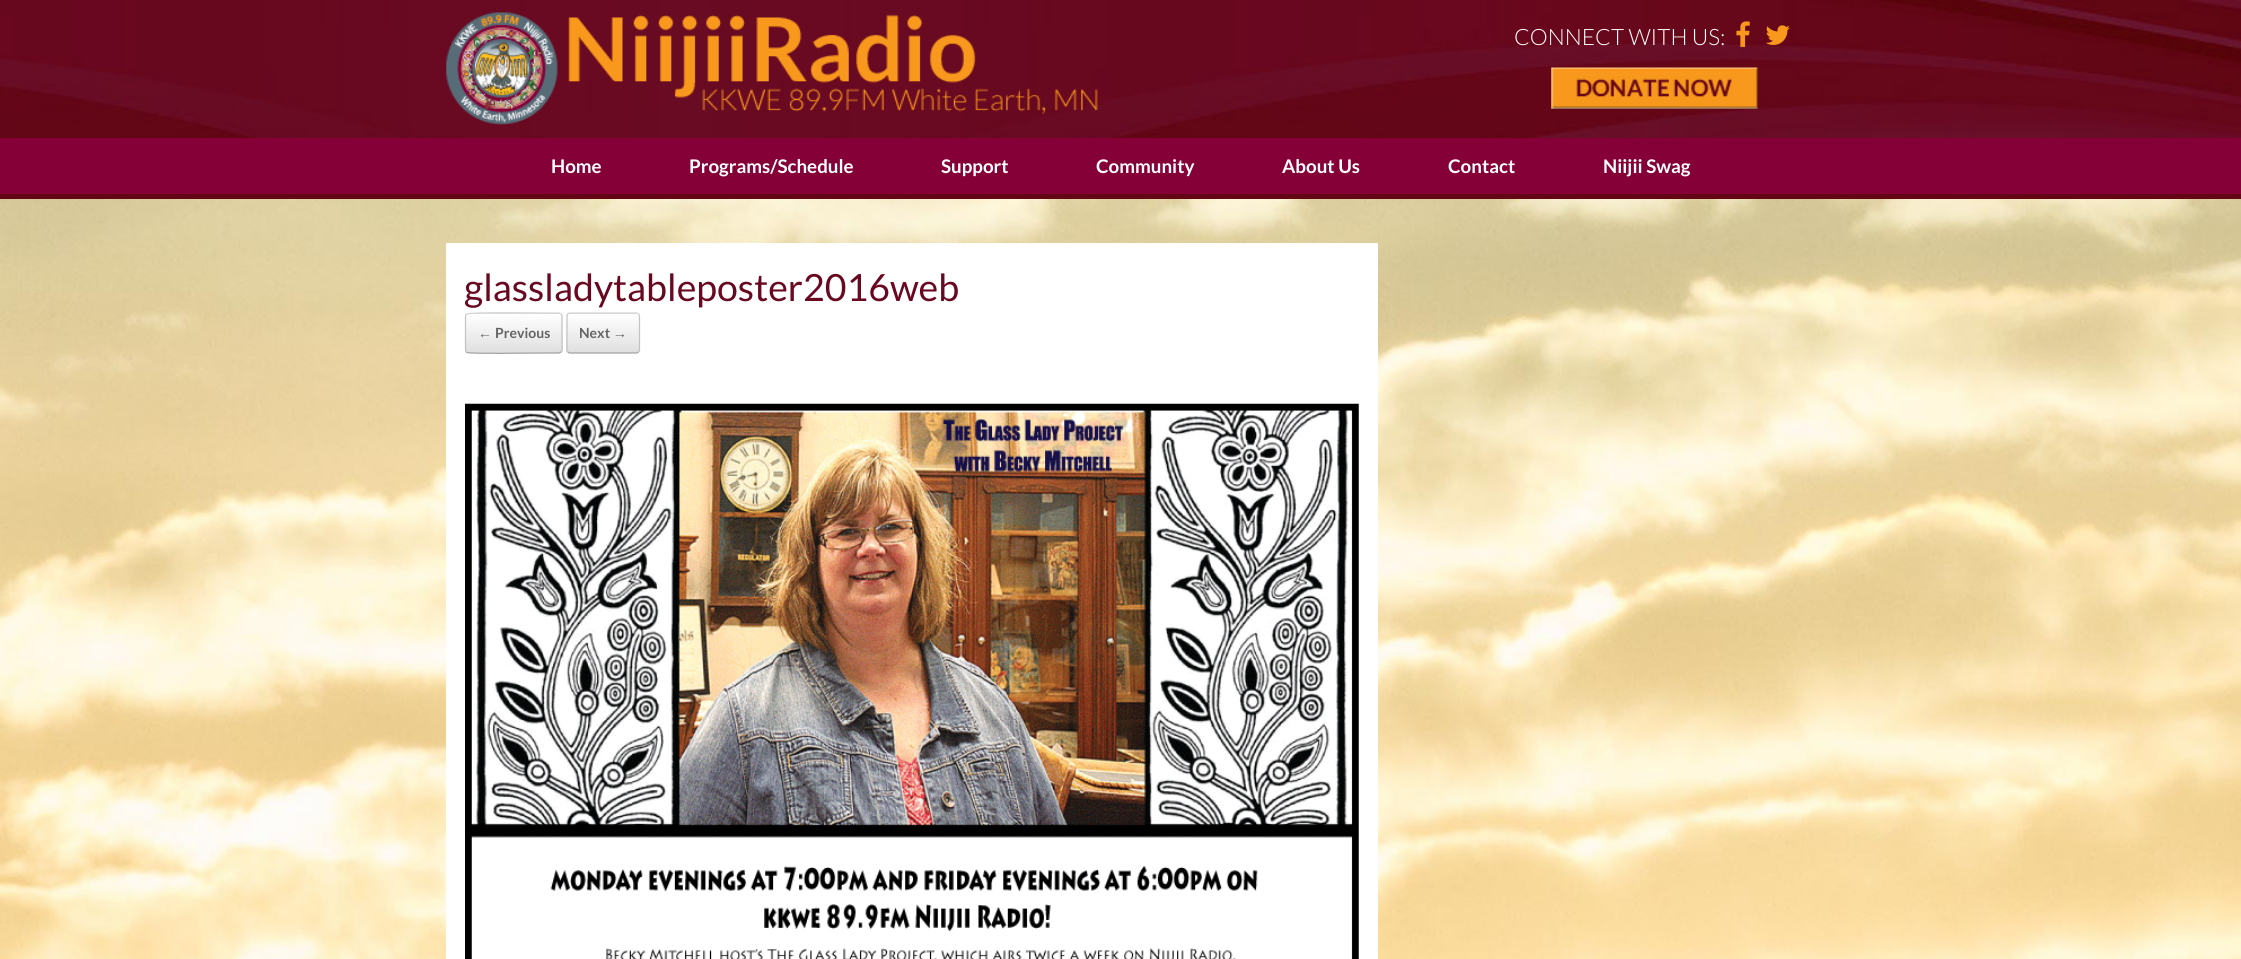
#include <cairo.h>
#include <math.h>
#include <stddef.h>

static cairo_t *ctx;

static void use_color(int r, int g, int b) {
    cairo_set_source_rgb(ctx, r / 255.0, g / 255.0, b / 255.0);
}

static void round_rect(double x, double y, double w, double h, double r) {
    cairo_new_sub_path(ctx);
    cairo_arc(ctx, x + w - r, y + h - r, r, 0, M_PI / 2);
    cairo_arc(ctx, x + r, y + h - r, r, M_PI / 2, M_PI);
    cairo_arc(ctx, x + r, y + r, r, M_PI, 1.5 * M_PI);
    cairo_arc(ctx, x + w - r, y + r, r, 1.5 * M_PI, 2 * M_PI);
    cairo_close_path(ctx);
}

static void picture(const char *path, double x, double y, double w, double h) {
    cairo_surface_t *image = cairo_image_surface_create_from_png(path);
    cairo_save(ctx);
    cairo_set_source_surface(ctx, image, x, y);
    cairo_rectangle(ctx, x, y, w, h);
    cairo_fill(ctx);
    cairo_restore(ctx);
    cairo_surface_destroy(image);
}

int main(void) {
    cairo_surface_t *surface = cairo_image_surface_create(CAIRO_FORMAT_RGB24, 2241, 959);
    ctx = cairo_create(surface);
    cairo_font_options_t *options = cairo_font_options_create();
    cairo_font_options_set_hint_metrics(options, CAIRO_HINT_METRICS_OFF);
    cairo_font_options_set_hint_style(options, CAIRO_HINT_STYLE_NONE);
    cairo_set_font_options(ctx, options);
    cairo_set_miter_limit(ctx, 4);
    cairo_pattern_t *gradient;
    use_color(255, 255, 255);
    cairo_paint(ctx);
    picture("img1.png", 0, 0, 2241, 138);
    picture("img2.png", 446, 12, 652, 113);
    cairo_select_font_face(ctx, "Lato Light", CAIRO_FONT_SLANT_NORMAL, CAIRO_FONT_WEIGHT_NORMAL);
    cairo_set_font_size(ctx, 22.5);
    use_color(255, 255, 255);
    cairo_move_to(ctx, 1514, 45);
    cairo_show_text(ctx, "CONNECT WITH US:");
    picture("img3.png", 1736, 21, 14, 26);
    picture("img4.png", 1766, 25, 24, 20);
    picture("img5.png", 1551, 67, 207, 42);
    use_color(134, 0, 56);
    cairo_rectangle(ctx, 0, 138, 2241, 56);
    cairo_fill(ctx);
    use_color(98, 6, 21);
    cairo_rectangle(ctx, 0, 194, 2241, 5);
    cairo_fill(ctx);
    cairo_select_font_face(ctx, "Lato", CAIRO_FONT_SLANT_NORMAL, CAIRO_FONT_WEIGHT_BOLD);
    cairo_set_font_size(ctx, 18.75);
    use_color(255, 255, 255);
    cairo_move_to(ctx, 551, 173);
    cairo_show_text(ctx, "Home");
    cairo_move_to(ctx, 689, 173);
    cairo_show_text(ctx, "Programs/Schedule");
    cairo_move_to(ctx, 941, 173);
    cairo_show_text(ctx, "Support");
    cairo_move_to(ctx, 1096, 173);
    cairo_show_text(ctx, "Community");
    cairo_move_to(ctx, 1282, 173);
    cairo_show_text(ctx, "About Us");
    cairo_move_to(ctx, 1448, 173);
    cairo_show_text(ctx, "Contact");
    cairo_move_to(ctx, 1603, 173);
    cairo_show_text(ctx, "Niijii Swag");
    picture("img6.png", 0, 199, 2241, 760);
    cairo_rectangle(ctx, 446, 243, 932, 716);
    cairo_fill(ctx);
    cairo_select_font_face(ctx, "Lato", CAIRO_FONT_SLANT_NORMAL, CAIRO_FONT_WEIGHT_NORMAL);
    cairo_set_font_size(ctx, 37.5);
    use_color(105, 9, 33);
    cairo_move_to(ctx, 464, 301);
    cairo_show_text(ctx, "glassladytableposter2016web");
    cairo_save(ctx);
    round_rect(465, 313, 98, 41, 4);
    cairo_clip(ctx);
    gradient = cairo_pattern_create_linear(466, 314, 466, 275);
    cairo_pattern_add_color_stop_rgba(gradient, 0, 0.875, 0.875, 0.875, 1);
    cairo_pattern_add_color_stop_rgba(gradient, 1, 1, 1, 1, 1);
    cairo_set_source(ctx, gradient);
    cairo_pattern_destroy(gradient);
    cairo_rectangle(ctx, 465, 313, 98, 1);
    cairo_fill(ctx);
    gradient = cairo_pattern_create_linear(466, 353, 466, 314);
    cairo_pattern_add_color_stop_rgba(gradient, 0, 0.875, 0.875, 0.875, 1);
    cairo_pattern_add_color_stop_rgba(gradient, 1, 1, 1, 1, 1);
    cairo_set_source(ctx, gradient);
    cairo_pattern_destroy(gradient);
    cairo_rectangle(ctx, 465, 314, 98, 39);
    cairo_fill(ctx);
    cairo_restore(ctx);
    cairo_new_path(ctx);
    cairo_move_to(ctx, 466.5, 314);
    cairo_line_to(ctx, 467, 314);
    cairo_curve_to(ctx, 469, 312, 535.5, 313, 544, 313);
    cairo_line_to(ctx, 559, 313);
    cairo_line_to(ctx, 561, 314);
    use_color(210, 210, 210);
    cairo_set_line_width(ctx, 1.2);
    cairo_stroke(ctx);
    cairo_new_path(ctx);
    cairo_move_to(ctx, 561, 314);
    cairo_curve_to(ctx, 561.5, 314.5, 562, 315.5, 562, 316);
    cairo_line_to(ctx, 562, 350);
    cairo_curve_to(ctx, 562, 351, 561.5, 351.5, 561, 352);
    use_color(195, 195, 195);
    cairo_stroke(ctx);
    cairo_new_path(ctx);
    cairo_move_to(ctx, 561, 352);
    cairo_line_to(ctx, 559, 353);
    cairo_line_to(ctx, 544, 353);
    cairo_curve_to(ctx, 535.5, 353, 469, 354, 467, 352.5);
    cairo_line_to(ctx, 466.5, 352);
    use_color(159, 159, 159);
    cairo_stroke(ctx);
    cairo_new_path(ctx);
    cairo_move_to(ctx, 466.5, 352);
    cairo_curve_to(ctx, 466, 351.5, 465.5, 351, 465.5, 350);
    cairo_line_to(ctx, 465.5, 316);
    cairo_curve_to(ctx, 465.5, 315.5, 466, 314.5, 466.5, 314);
    use_color(195, 195, 195);
    cairo_stroke(ctx);
    cairo_select_font_face(ctx, "Liberation Serif", CAIRO_FONT_SLANT_NORMAL, CAIRO_FONT_WEIGHT_BOLD);
    cairo_set_font_size(ctx, 14);
    use_color(100, 100, 100);
    cairo_move_to(ctx, 478, 338);
    cairo_show_text(ctx, "←");
    cairo_select_font_face(ctx, "Lato", CAIRO_FONT_SLANT_NORMAL, CAIRO_FONT_WEIGHT_BOLD);
    cairo_move_to(ctx, 495, 338);
    cairo_show_text(ctx, "Previous");
    cairo_save(ctx);
    round_rect(566, 313, 74, 41, 4);
    cairo_clip(ctx);
    gradient = cairo_pattern_create_linear(568, 314, 568, 275);
    cairo_pattern_add_color_stop_rgba(gradient, 0, 0.875, 0.875, 0.875, 1);
    cairo_pattern_add_color_stop_rgba(gradient, 1, 1, 1, 1, 1);
    cairo_set_source(ctx, gradient);
    cairo_pattern_destroy(gradient);
    cairo_rectangle(ctx, 566, 313, 74, 1);
    cairo_fill(ctx);
    gradient = cairo_pattern_create_linear(568, 353, 568, 314);
    cairo_pattern_add_color_stop_rgba(gradient, 0, 0.875, 0.875, 0.875, 1);
    cairo_pattern_add_color_stop_rgba(gradient, 1, 1, 1, 1, 1);
    cairo_set_source(ctx, gradient);
    cairo_pattern_destroy(gradient);
    cairo_rectangle(ctx, 566, 314, 74, 39);
    cairo_fill(ctx);
    cairo_restore(ctx);
    cairo_new_path(ctx);
    cairo_move_to(ctx, 568, 314);
    cairo_line_to(ctx, 569.5, 313);
    cairo_line_to(ctx, 636.5, 313);
    cairo_line_to(ctx, 638.5, 314);
    use_color(210, 210, 210);
    cairo_stroke(ctx);
    cairo_new_path(ctx);
    cairo_move_to(ctx, 638.5, 314);
    cairo_curve_to(ctx, 639, 314.5, 639.5, 315.5, 639.5, 316);
    cairo_line_to(ctx, 639.5, 350);
    cairo_curve_to(ctx, 639.5, 351, 639, 351.5, 638.5, 352);
    use_color(195, 195, 195);
    cairo_stroke(ctx);
    cairo_new_path(ctx);
    cairo_move_to(ctx, 638.5, 352);
    cairo_line_to(ctx, 636.5, 353);
    cairo_line_to(ctx, 569.5, 353);
    cairo_line_to(ctx, 568, 352);
    use_color(159, 159, 159);
    cairo_stroke(ctx);
    cairo_new_path(ctx);
    cairo_move_to(ctx, 568, 352);
    cairo_curve_to(ctx, 567, 351.5, 567, 351, 567, 350);
    cairo_line_to(ctx, 567, 316);
    cairo_curve_to(ctx, 567, 315.5, 567, 314.5, 568, 314);
    use_color(195, 195, 195);
    cairo_stroke(ctx);
    use_color(100, 100, 100);
    cairo_move_to(ctx, 579, 338);
    cairo_show_text(ctx, "Next");
    cairo_select_font_face(ctx, "Liberation Serif", CAIRO_FONT_SLANT_NORMAL, CAIRO_FONT_WEIGHT_BOLD);
    cairo_move_to(ctx, 613, 338);
    cairo_show_text(ctx, "→");
    picture("img7.png", 465, 403, 894, 556);
    cairo_surface_write_to_png(surface, "result.png");
    cairo_font_options_destroy(options);
    cairo_destroy(ctx);
    cairo_surface_destroy(surface);
    return 0;
}
